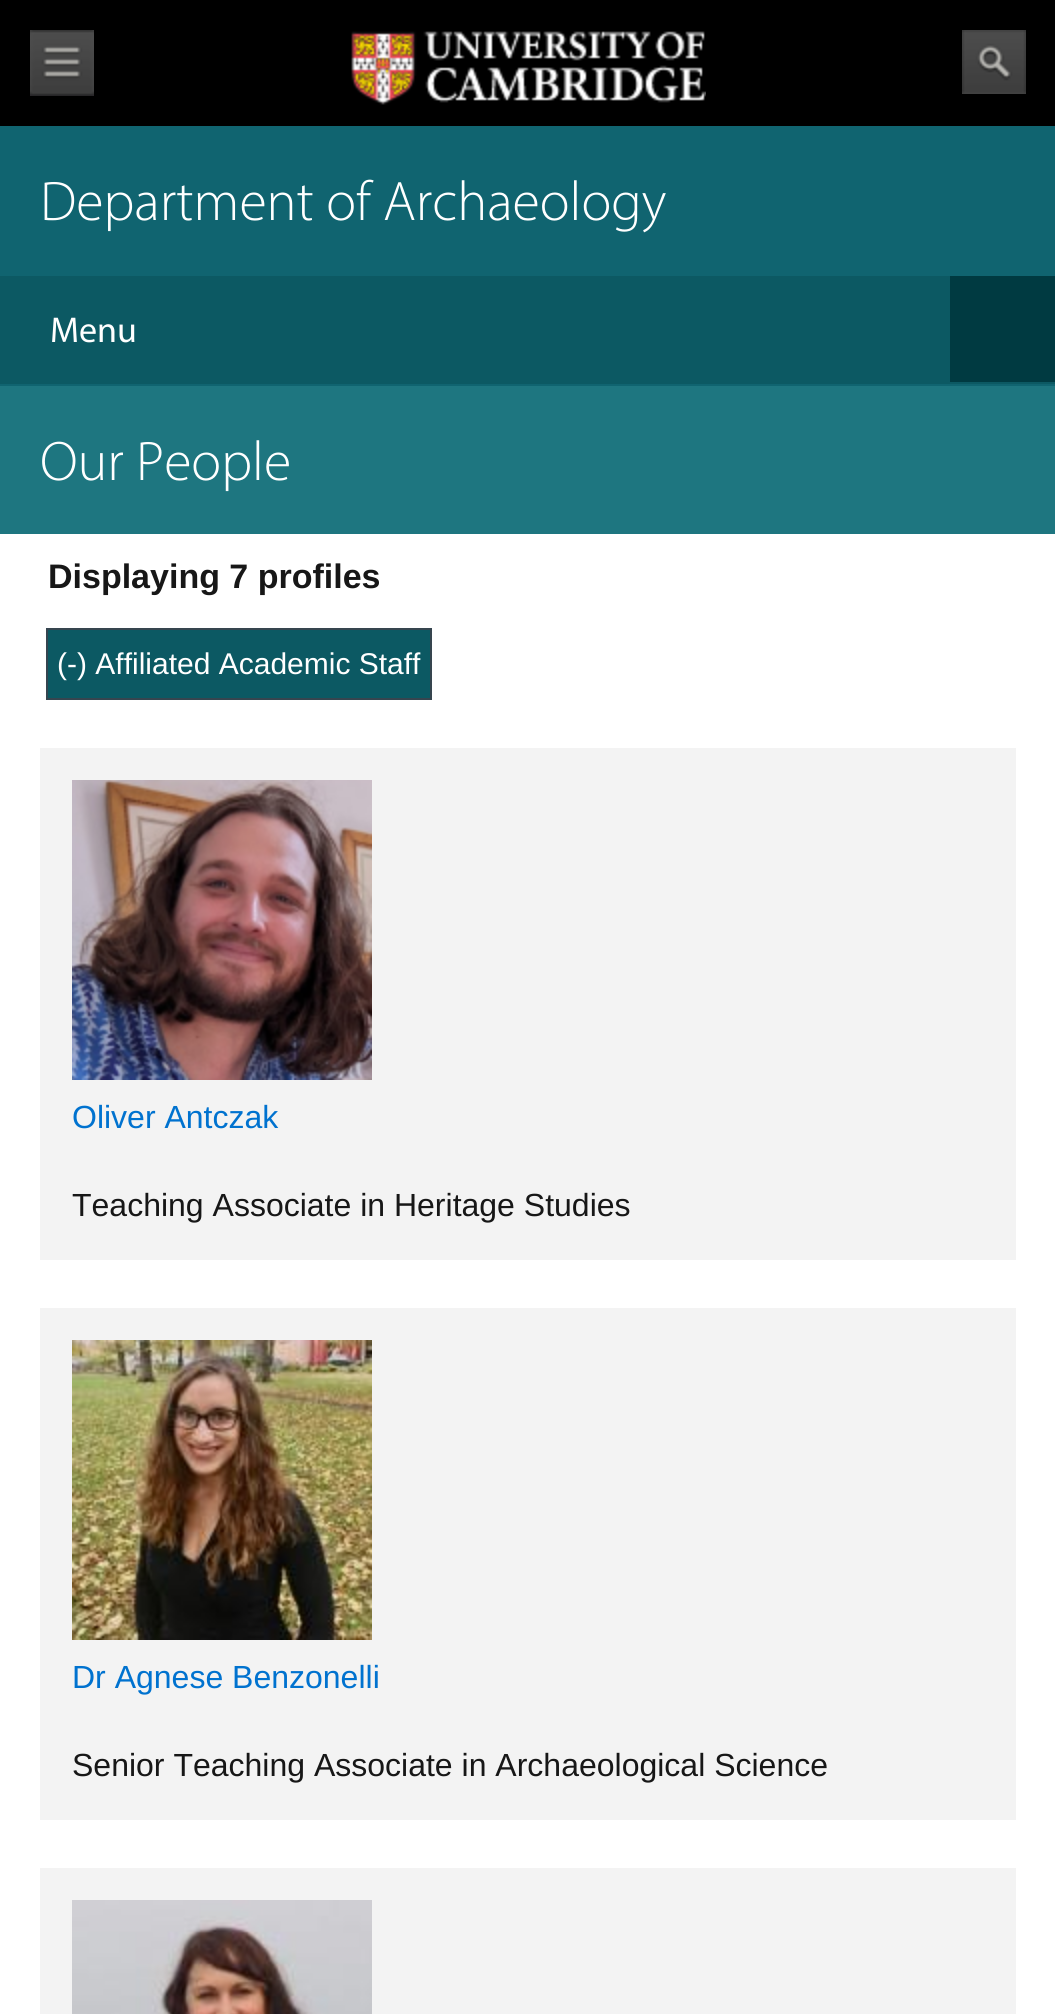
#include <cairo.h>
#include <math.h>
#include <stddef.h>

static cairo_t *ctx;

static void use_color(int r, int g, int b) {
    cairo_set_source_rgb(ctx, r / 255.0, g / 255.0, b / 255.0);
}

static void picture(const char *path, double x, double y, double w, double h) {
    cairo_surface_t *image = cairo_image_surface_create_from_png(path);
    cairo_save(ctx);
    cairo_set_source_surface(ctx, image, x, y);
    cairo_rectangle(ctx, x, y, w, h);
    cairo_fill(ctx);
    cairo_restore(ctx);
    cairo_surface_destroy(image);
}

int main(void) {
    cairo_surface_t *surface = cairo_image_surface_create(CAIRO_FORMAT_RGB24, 1055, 2014);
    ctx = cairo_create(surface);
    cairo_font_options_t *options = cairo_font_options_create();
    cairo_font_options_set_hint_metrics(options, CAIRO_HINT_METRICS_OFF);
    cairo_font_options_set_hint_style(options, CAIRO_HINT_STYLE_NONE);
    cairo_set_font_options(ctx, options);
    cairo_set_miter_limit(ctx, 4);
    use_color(0, 0, 0);
    cairo_paint(ctx);
    picture("img1.png", 30, 30, 64, 66);
    picture("img2.png", 351, 31, 355, 74);
    picture("img3.png", 962, 30, 64, 64);
    use_color(16, 100, 112);
    cairo_rectangle(ctx, 0, 126, 1055, 150);
    cairo_fill(ctx);
    cairo_select_font_face(ctx, "Myriad Light", CAIRO_FONT_SLANT_NORMAL, CAIRO_FONT_WEIGHT_NORMAL);
    cairo_set_font_size(ctx, 56);
    use_color(255, 255, 255);
    cairo_move_to(ctx, 40, 220);
    cairo_show_text(ctx, "Department of Archaeology");
    use_color(12, 89, 99);
    cairo_rectangle(ctx, 0, 276, 1055, 108);
    cairo_fill(ctx);
    use_color(16, 100, 112);
    cairo_rectangle(ctx, 0, 384, 1055, 2);
    cairo_fill(ctx);
    cairo_select_font_face(ctx, "Myriad", CAIRO_FONT_SLANT_NORMAL, CAIRO_FONT_WEIGHT_NORMAL);
    cairo_set_font_size(ctx, 36);
    use_color(255, 255, 255);
    cairo_move_to(ctx, 50, 342);
    cairo_show_text(ctx, "Menu");
    use_color(0, 58, 65);
    cairo_rectangle(ctx, 950, 276, 105, 106);
    cairo_fill(ctx);
    use_color(30, 118, 128);
    cairo_rectangle(ctx, 0, 386, 1055, 148);
    cairo_fill(ctx);
    cairo_select_font_face(ctx, "Myriad Light", CAIRO_FONT_SLANT_NORMAL, CAIRO_FONT_WEIGHT_NORMAL);
    cairo_set_font_size(ctx, 56);
    use_color(255, 255, 255);
    cairo_move_to(ctx, 40, 480);
    cairo_show_text(ctx, "Our People");
    cairo_rectangle(ctx, 0, 534, 1055, 1480);
    cairo_fill(ctx);
    cairo_select_font_face(ctx, "Liberation Sans", CAIRO_FONT_SLANT_NORMAL, CAIRO_FONT_WEIGHT_BOLD);
    cairo_set_font_size(ctx, 34);
    use_color(23, 23, 23);
    cairo_move_to(ctx, 48, 588);
    cairo_show_text(ctx, "Displaying 7 profiles");
    use_color(12, 89, 99);
    cairo_rectangle(ctx, 47, 629, 384, 70);
    cairo_fill_preserve(ctx);
    use_color(54, 69, 79);
    cairo_stroke(ctx);
    cairo_select_font_face(ctx, "Liberation Sans", CAIRO_FONT_SLANT_NORMAL, CAIRO_FONT_WEIGHT_NORMAL);
    cairo_set_font_size(ctx, 30);
    use_color(255, 255, 255);
    cairo_move_to(ctx, 57, 674);
    cairo_show_text(ctx, "(-) Affiliated Academic Staff");
    use_color(243, 243, 243);
    cairo_rectangle(ctx, 40, 748, 976, 512);
    cairo_fill(ctx);
    picture("img4.png", 72, 780, 300, 300);
    cairo_set_font_size(ctx, 32);
    use_color(0, 114, 207);
    cairo_move_to(ctx, 72, 1128);
    cairo_show_text(ctx, "Oliver Antczak");
    use_color(23, 23, 23);
    cairo_move_to(ctx, 72, 1216);
    cairo_show_text(ctx, "Teaching Associate in Heritage Studies");
    use_color(243, 243, 243);
    cairo_rectangle(ctx, 40, 1308, 976, 512);
    cairo_fill(ctx);
    picture("img5.png", 72, 1340, 300, 300);
    use_color(0, 114, 207);
    cairo_move_to(ctx, 72, 1688);
    cairo_show_text(ctx, "Dr Agnese Benzonelli");
    use_color(23, 23, 23);
    cairo_move_to(ctx, 72, 1776);
    cairo_show_text(ctx, "Senior Teaching Associate in Archaeological Science");
    use_color(243, 243, 243);
    cairo_rectangle(ctx, 40, 1868, 976, 146);
    cairo_fill(ctx);
    picture("img6.png", 72, 1900, 300, 114);
    cairo_surface_write_to_png(surface, "result.png");
    cairo_font_options_destroy(options);
    cairo_destroy(ctx);
    cairo_surface_destroy(surface);
    return 0;
}
